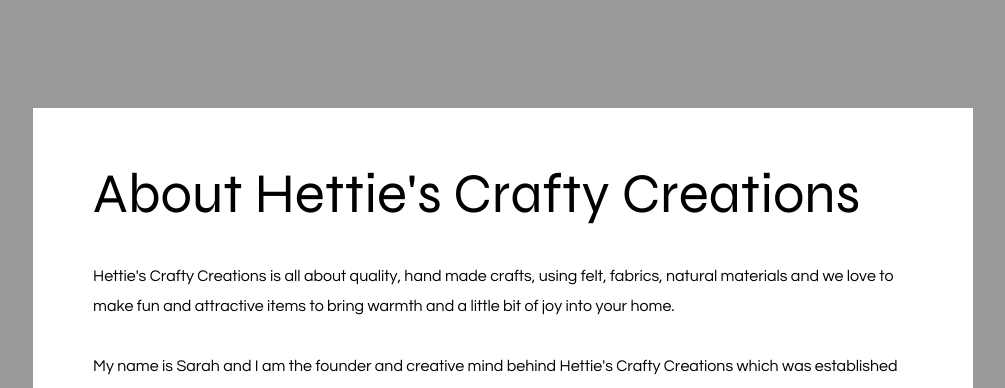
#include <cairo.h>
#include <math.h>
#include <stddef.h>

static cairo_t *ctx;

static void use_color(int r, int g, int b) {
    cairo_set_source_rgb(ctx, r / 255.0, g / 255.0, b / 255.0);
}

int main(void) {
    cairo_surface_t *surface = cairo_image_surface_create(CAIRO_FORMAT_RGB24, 1005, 388);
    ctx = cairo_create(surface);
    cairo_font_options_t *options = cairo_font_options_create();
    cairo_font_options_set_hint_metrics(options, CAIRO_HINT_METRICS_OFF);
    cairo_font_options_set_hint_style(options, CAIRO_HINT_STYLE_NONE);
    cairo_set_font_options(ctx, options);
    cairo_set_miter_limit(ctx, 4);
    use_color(153, 153, 153);
    cairo_paint(ctx);
    use_color(255, 255, 255);
    cairo_rectangle(ctx, 33, 108, 940, 280);
    cairo_fill(ctx);
    cairo_select_font_face(ctx, "Syne", CAIRO_FONT_SLANT_NORMAL, CAIRO_FONT_WEIGHT_NORMAL);
    cairo_set_font_size(ctx, 56);
    use_color(0, 0, 0);
    cairo_move_to(ctx, 93, 212);
    cairo_show_text(ctx, "About Hettie's Crafty Creations");
    cairo_select_font_face(ctx, "Questrial", CAIRO_FONT_SLANT_NORMAL, CAIRO_FONT_WEIGHT_NORMAL);
    cairo_set_font_size(ctx, 16);
    cairo_move_to(ctx, 93, 281);
    cairo_show_text(ctx, "Hettie's Crafty Creations is all about quality, hand made crafts, using felt, fabrics, natural materials and we love to");
    cairo_move_to(ctx, 93, 311);
    cairo_show_text(ctx, "make fun and attractive items to bring warmth and a little bit of joy into your home.");
    cairo_move_to(ctx, 93, 371);
    cairo_show_text(ctx, "My name is Sarah and I am the founder and creative mind behind Hettie's Crafty Creations which was established");
    cairo_surface_write_to_png(surface, "result.png");
    cairo_font_options_destroy(options);
    cairo_destroy(ctx);
    cairo_surface_destroy(surface);
    return 0;
}
